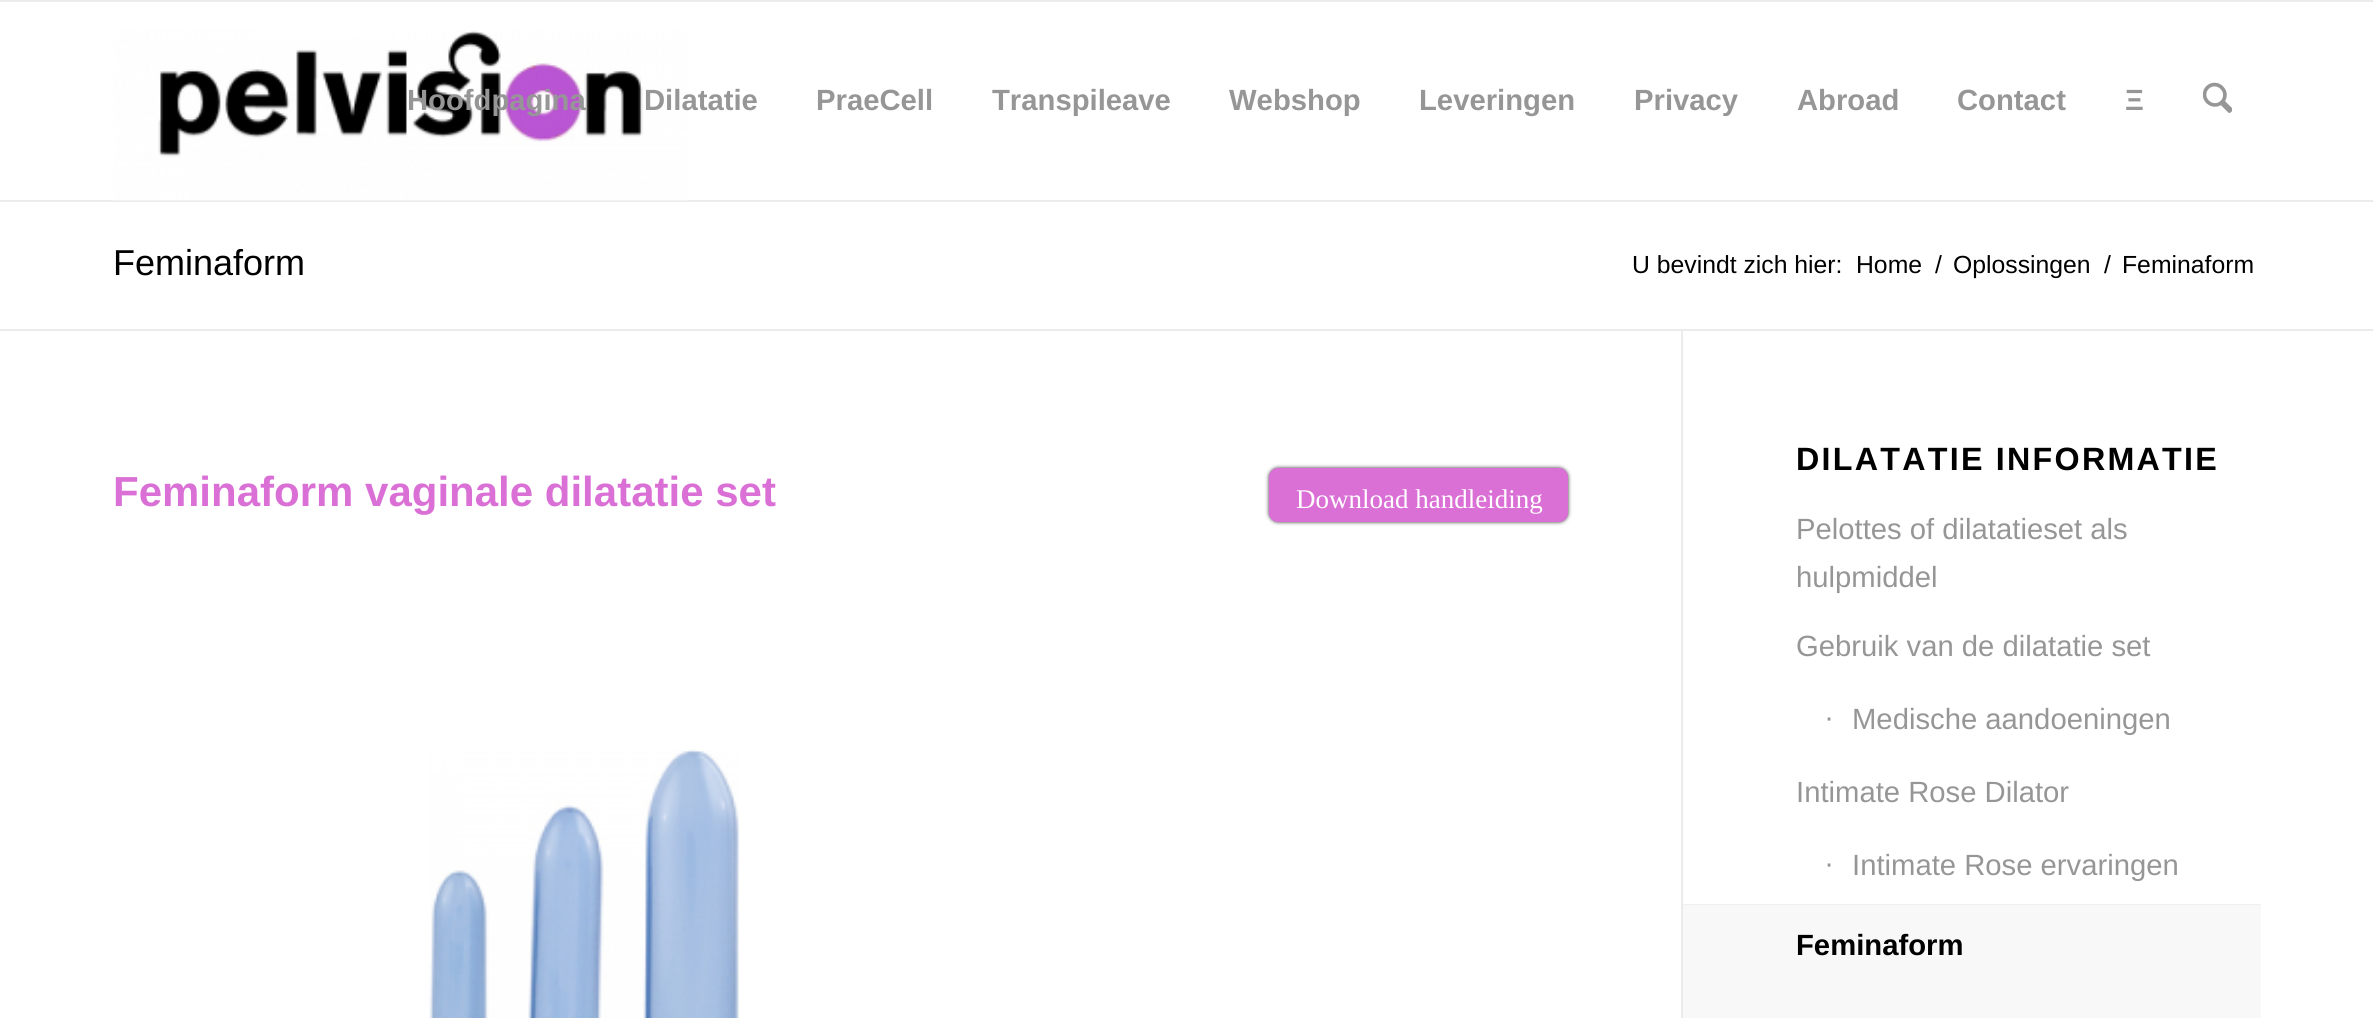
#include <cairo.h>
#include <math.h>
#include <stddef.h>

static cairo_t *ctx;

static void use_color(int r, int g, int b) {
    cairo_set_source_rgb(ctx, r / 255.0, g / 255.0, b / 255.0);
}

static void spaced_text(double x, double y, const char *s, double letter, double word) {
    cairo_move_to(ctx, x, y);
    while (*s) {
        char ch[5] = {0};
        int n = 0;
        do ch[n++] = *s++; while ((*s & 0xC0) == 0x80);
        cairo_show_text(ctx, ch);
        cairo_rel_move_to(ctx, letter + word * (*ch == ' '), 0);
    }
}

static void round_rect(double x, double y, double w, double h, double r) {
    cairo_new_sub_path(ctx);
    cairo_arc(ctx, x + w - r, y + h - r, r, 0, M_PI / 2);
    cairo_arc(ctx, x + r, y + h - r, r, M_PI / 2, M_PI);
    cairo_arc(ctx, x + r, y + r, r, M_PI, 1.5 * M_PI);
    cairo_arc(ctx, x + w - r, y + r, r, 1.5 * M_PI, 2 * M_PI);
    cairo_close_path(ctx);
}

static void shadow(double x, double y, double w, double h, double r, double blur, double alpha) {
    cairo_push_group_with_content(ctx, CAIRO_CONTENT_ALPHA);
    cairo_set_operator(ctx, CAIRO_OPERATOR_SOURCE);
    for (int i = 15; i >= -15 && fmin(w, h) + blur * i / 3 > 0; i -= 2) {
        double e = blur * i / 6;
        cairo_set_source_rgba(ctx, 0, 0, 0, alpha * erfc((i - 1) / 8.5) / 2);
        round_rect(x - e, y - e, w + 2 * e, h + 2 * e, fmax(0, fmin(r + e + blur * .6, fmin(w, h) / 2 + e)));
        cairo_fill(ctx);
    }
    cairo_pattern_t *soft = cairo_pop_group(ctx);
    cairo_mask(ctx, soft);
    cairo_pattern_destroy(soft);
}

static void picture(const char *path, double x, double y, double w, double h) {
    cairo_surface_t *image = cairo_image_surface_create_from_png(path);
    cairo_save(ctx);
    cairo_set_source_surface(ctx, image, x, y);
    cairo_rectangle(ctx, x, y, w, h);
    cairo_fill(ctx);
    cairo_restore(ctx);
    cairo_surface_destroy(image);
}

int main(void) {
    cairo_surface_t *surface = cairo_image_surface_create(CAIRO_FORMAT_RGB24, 2373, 1018);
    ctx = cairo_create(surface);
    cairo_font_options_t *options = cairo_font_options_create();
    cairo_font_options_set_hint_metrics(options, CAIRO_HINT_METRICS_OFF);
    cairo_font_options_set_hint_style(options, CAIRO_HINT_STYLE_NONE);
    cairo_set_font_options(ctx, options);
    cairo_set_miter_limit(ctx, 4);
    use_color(255, 255, 255);
    cairo_paint(ctx);
    use_color(235, 235, 235);
    cairo_rectangle(ctx, 0, 0, 2373, 2);
    cairo_fill(ctx);
    cairo_rectangle(ctx, 0, 200, 2373, 2);
    cairo_fill(ctx);
    picture("img1.png", 113, 30, 575, 171);
    cairo_select_font_face(ctx, "Liberation Sans", CAIRO_FONT_SLANT_NORMAL, CAIRO_FONT_WEIGHT_BOLD);
    cairo_set_font_size(ctx, 29.25);
    use_color(150, 150, 150);
    cairo_move_to(ctx, 407, 110);
    cairo_show_text(ctx, "Hoofdpagina");
    cairo_move_to(ctx, 644, 110);
    cairo_show_text(ctx, "Dilatatie");
    cairo_move_to(ctx, 816, 110);
    cairo_show_text(ctx, "PraeCell");
    cairo_move_to(ctx, 992, 110);
    cairo_show_text(ctx, "Transpileave");
    cairo_move_to(ctx, 1229, 110);
    cairo_show_text(ctx, "Webshop");
    cairo_move_to(ctx, 1419, 110);
    cairo_show_text(ctx, "Leveringen");
    cairo_move_to(ctx, 1634, 110);
    cairo_show_text(ctx, "Privacy");
    cairo_move_to(ctx, 1797, 110);
    cairo_show_text(ctx, "Abroad");
    cairo_move_to(ctx, 1957, 110);
    cairo_show_text(ctx, "Contact");
    cairo_move_to(ctx, 2125, 110);
    cairo_show_text(ctx, "Ξ");
    picture("img2.png", 2203, 82, 29, 31);
    cairo_select_font_face(ctx, "Liberation Sans", CAIRO_FONT_SLANT_NORMAL, CAIRO_FONT_WEIGHT_NORMAL);
    cairo_set_font_size(ctx, 36);
    use_color(0, 0, 0);
    cairo_move_to(ctx, 113, 275);
    cairo_show_text(ctx, "Feminaform");
    cairo_set_font_size(ctx, 24.75);
    cairo_move_to(ctx, 1632, 273);
    cairo_show_text(ctx, "U bevindt zich hier:");
    cairo_move_to(ctx, 1856, 273);
    cairo_show_text(ctx, "Home");
    cairo_move_to(ctx, 1935, 273);
    cairo_show_text(ctx, "/");
    cairo_move_to(ctx, 1953, 273);
    cairo_show_text(ctx, "Oplossingen");
    cairo_move_to(ctx, 2104, 273);
    cairo_show_text(ctx, "/");
    cairo_move_to(ctx, 2122, 273);
    cairo_show_text(ctx, "Feminaform");
    use_color(235, 235, 235);
    cairo_rectangle(ctx, 0, 329, 2373, 2);
    cairo_fill(ctx);
    cairo_rectangle(ctx, 1681, 331, 2, 687);
    cairo_fill(ctx);
    cairo_select_font_face(ctx, "Liberation Sans", CAIRO_FONT_SLANT_NORMAL, CAIRO_FONT_WEIGHT_BOLD);
    cairo_set_font_size(ctx, 42);
    use_color(218, 112, 214);
    cairo_move_to(ctx, 113, 506);
    cairo_show_text(ctx, "Feminaform vaginale dilatatie set");
    use_color(51, 51, 51);
    shadow(1269, 468, 299, 54, 9, 2, 1);
    use_color(218, 112, 214);
    round_rect(1271.5, 470.5, 294, 49, 6.5);
    cairo_fill_preserve(ctx);
    cairo_set_line_width(ctx, 5);
    cairo_stroke(ctx);
    cairo_select_font_face(ctx, "Liberation Serif", CAIRO_FONT_SLANT_NORMAL, CAIRO_FONT_WEIGHT_NORMAL);
    cairo_set_font_size(ctx, 27);
    use_color(255, 255, 255);
    cairo_move_to(ctx, 1296, 508);
    cairo_show_text(ctx, "Download handleiding");
    picture("img3.png", 429, 749, 311, 269);
    cairo_select_font_face(ctx, "Liberation Sans", CAIRO_FONT_SLANT_NORMAL, CAIRO_FONT_WEIGHT_BOLD);
    cairo_set_font_size(ctx, 32.25);
    use_color(0, 0, 0);
    spaced_text(1796, 470, "DILATATIE INFORMATIE", 2.25, 0);
    cairo_select_font_face(ctx, "Liberation Sans", CAIRO_FONT_SLANT_NORMAL, CAIRO_FONT_WEIGHT_NORMAL);
    cairo_set_font_size(ctx, 29.25);
    use_color(150, 150, 150);
    cairo_move_to(ctx, 1796, 539);
    cairo_show_text(ctx, "Pelottes of dilatatieset als");
    cairo_move_to(ctx, 1796, 587);
    cairo_show_text(ctx, "hulpmiddel");
    cairo_move_to(ctx, 1796, 656);
    cairo_show_text(ctx, "Gebruik van de dilatatie set");
    cairo_move_to(ctx, 1825, 727);
    cairo_show_text(ctx, "∙");
    cairo_move_to(ctx, 1852, 729);
    cairo_show_text(ctx, "Medische aandoeningen");
    cairo_move_to(ctx, 1796, 802);
    cairo_show_text(ctx, "Intimate Rose Dilator");
    cairo_move_to(ctx, 1825, 873);
    cairo_show_text(ctx, "∙");
    cairo_move_to(ctx, 1852, 875);
    cairo_show_text(ctx, "Intimate Rose ervaringen");
    cairo_save(ctx);
    cairo_rectangle(ctx, 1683, 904, 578, 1);
    cairo_clip(ctx);
    use_color(0, 0, 0);
    shadow(1681, 905, 580, 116, 0, 1, 0.2);
    cairo_restore(ctx);
    use_color(248, 248, 248);
    cairo_rectangle(ctx, 1683, 905, 578, 113);
    cairo_fill(ctx);
    cairo_select_font_face(ctx, "Liberation Sans", CAIRO_FONT_SLANT_NORMAL, CAIRO_FONT_WEIGHT_BOLD);
    use_color(0, 0, 0);
    cairo_move_to(ctx, 1796, 955);
    cairo_show_text(ctx, "Feminaform");
    cairo_surface_write_to_png(surface, "result.png");
    cairo_font_options_destroy(options);
    cairo_destroy(ctx);
    cairo_surface_destroy(surface);
    return 0;
}
